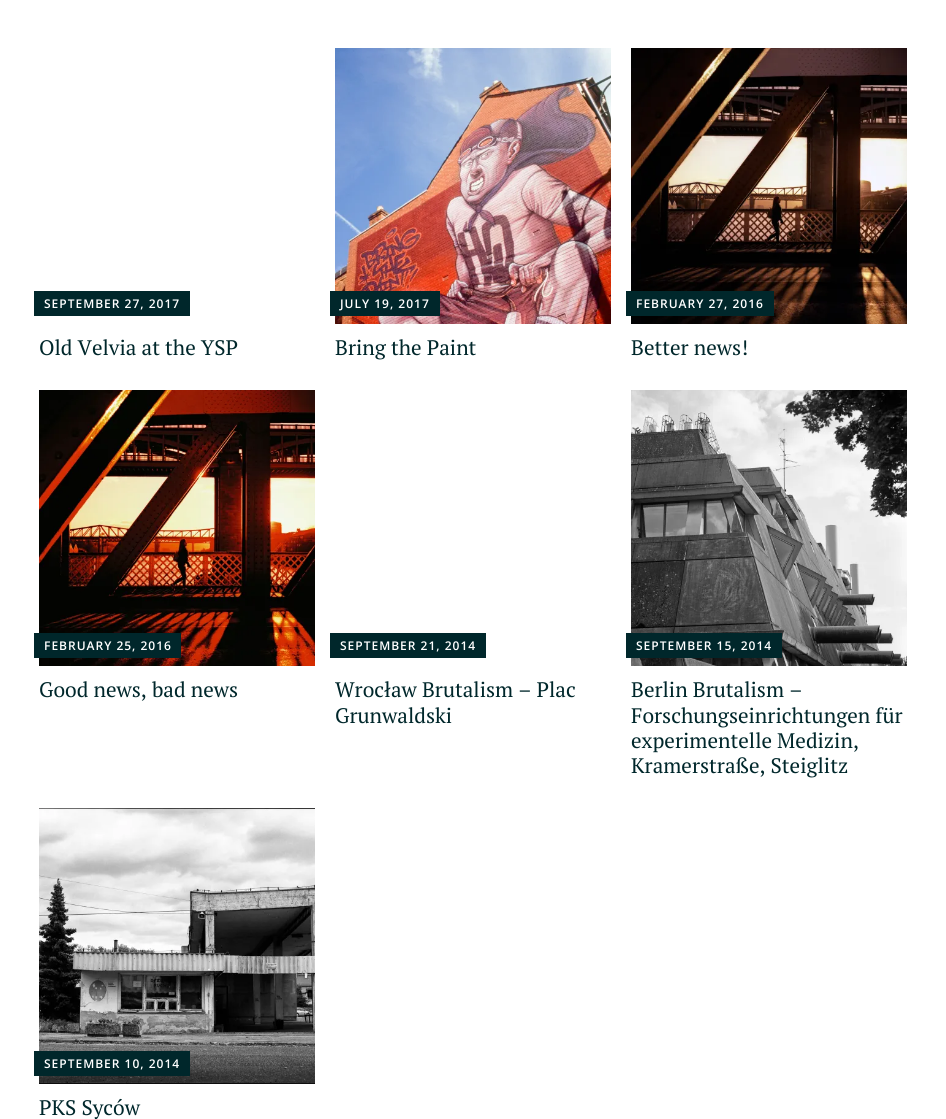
#include <cairo.h>
#include <math.h>
#include <stddef.h>

static cairo_t *ctx;

static void use_color(int r, int g, int b) {
    cairo_set_source_rgb(ctx, r / 255.0, g / 255.0, b / 255.0);
}

static void spaced_text(double x, double y, const char *s, double letter, double word) {
    cairo_move_to(ctx, x, y);
    while (*s) {
        char ch[5] = {0};
        int n = 0;
        do ch[n++] = *s++; while ((*s & 0xC0) == 0x80);
        cairo_show_text(ctx, ch);
        cairo_rel_move_to(ctx, letter + word * (*ch == ' '), 0);
    }
}

static void picture(const char *path, double x, double y, double w, double h) {
    cairo_surface_t *image = cairo_image_surface_create_from_png(path);
    cairo_save(ctx);
    cairo_set_source_surface(ctx, image, x, y);
    cairo_rectangle(ctx, x, y, w, h);
    cairo_fill(ctx);
    cairo_restore(ctx);
    cairo_surface_destroy(image);
}

int main(void) {
    cairo_surface_t *surface = cairo_image_surface_create(CAIRO_FORMAT_RGB24, 946, 1119);
    ctx = cairo_create(surface);
    cairo_font_options_t *options = cairo_font_options_create();
    cairo_font_options_set_hint_metrics(options, CAIRO_HINT_METRICS_OFF);
    cairo_font_options_set_hint_style(options, CAIRO_HINT_STYLE_NONE);
    cairo_set_font_options(ctx, options);
    cairo_set_miter_limit(ctx, 4);
    use_color(255, 255, 255);
    cairo_paint(ctx);
    use_color(0, 39, 43);
    cairo_rectangle(ctx, 34, 291, 156, 25);
    cairo_fill(ctx);
    cairo_select_font_face(ctx, "Open Sans SemiBold", CAIRO_FONT_SLANT_NORMAL, CAIRO_FONT_WEIGHT_NORMAL);
    cairo_set_font_size(ctx, 12);
    use_color(255, 255, 255);
    spaced_text(44, 308, "SEPTEMBER 27, 2017", 1, 0);
    cairo_select_font_face(ctx, "PT Serif", CAIRO_FONT_SLANT_NORMAL, CAIRO_FONT_WEIGHT_NORMAL);
    cairo_set_font_size(ctx, 21);
    use_color(0, 39, 43);
    cairo_move_to(ctx, 39, 355);
    cairo_show_text(ctx, "Old Velvia at the YSP");
    picture("img1.png", 335, 48, 276, 276);
    cairo_rectangle(ctx, 330, 291, 110, 25);
    cairo_fill(ctx);
    cairo_select_font_face(ctx, "Open Sans SemiBold", CAIRO_FONT_SLANT_NORMAL, CAIRO_FONT_WEIGHT_NORMAL);
    cairo_set_font_size(ctx, 12);
    use_color(255, 255, 255);
    spaced_text(340, 308, "JULY 19, 2017", 1, 0);
    cairo_select_font_face(ctx, "PT Serif", CAIRO_FONT_SLANT_NORMAL, CAIRO_FONT_WEIGHT_NORMAL);
    cairo_set_font_size(ctx, 21);
    use_color(0, 39, 43);
    cairo_move_to(ctx, 335, 355);
    cairo_show_text(ctx, "Bring the Paint");
    picture("img2.png", 631, 48, 276, 276);
    cairo_rectangle(ctx, 626, 291, 148, 25);
    cairo_fill(ctx);
    cairo_select_font_face(ctx, "Open Sans SemiBold", CAIRO_FONT_SLANT_NORMAL, CAIRO_FONT_WEIGHT_NORMAL);
    cairo_set_font_size(ctx, 12);
    use_color(255, 255, 255);
    spaced_text(636, 308, "FEBRUARY 27, 2016", 1, 0);
    cairo_select_font_face(ctx, "PT Serif", CAIRO_FONT_SLANT_NORMAL, CAIRO_FONT_WEIGHT_NORMAL);
    cairo_set_font_size(ctx, 21);
    use_color(0, 39, 43);
    cairo_move_to(ctx, 631, 355);
    cairo_show_text(ctx, "Better news!");
    picture("img3.png", 39, 390, 276, 276);
    cairo_rectangle(ctx, 34, 633, 147, 25);
    cairo_fill(ctx);
    cairo_select_font_face(ctx, "Open Sans SemiBold", CAIRO_FONT_SLANT_NORMAL, CAIRO_FONT_WEIGHT_NORMAL);
    cairo_set_font_size(ctx, 12);
    use_color(255, 255, 255);
    spaced_text(44, 650, "FEBRUARY 25, 2016", 1, 0);
    cairo_select_font_face(ctx, "PT Serif", CAIRO_FONT_SLANT_NORMAL, CAIRO_FONT_WEIGHT_NORMAL);
    cairo_set_font_size(ctx, 21);
    use_color(0, 39, 43);
    cairo_move_to(ctx, 39, 697);
    cairo_show_text(ctx, "Good news, bad news");
    cairo_rectangle(ctx, 330, 633, 156, 25);
    cairo_fill(ctx);
    cairo_select_font_face(ctx, "Open Sans SemiBold", CAIRO_FONT_SLANT_NORMAL, CAIRO_FONT_WEIGHT_NORMAL);
    cairo_set_font_size(ctx, 12);
    use_color(255, 255, 255);
    spaced_text(340, 650, "SEPTEMBER 21, 2014", 1, 0);
    cairo_select_font_face(ctx, "PT Serif", CAIRO_FONT_SLANT_NORMAL, CAIRO_FONT_WEIGHT_NORMAL);
    cairo_set_font_size(ctx, 21);
    use_color(0, 39, 43);
    cairo_move_to(ctx, 335, 697);
    cairo_show_text(ctx, "Wrocław Brutalism – Plac");
    cairo_move_to(ctx, 335, 723);
    cairo_show_text(ctx, "Grunwaldski");
    picture("img4.png", 631, 390, 276, 276);
    cairo_rectangle(ctx, 626, 633, 156, 25);
    cairo_fill(ctx);
    cairo_select_font_face(ctx, "Open Sans SemiBold", CAIRO_FONT_SLANT_NORMAL, CAIRO_FONT_WEIGHT_NORMAL);
    cairo_set_font_size(ctx, 12);
    use_color(255, 255, 255);
    spaced_text(636, 650, "SEPTEMBER 15, 2014", 1, 0);
    cairo_select_font_face(ctx, "PT Serif", CAIRO_FONT_SLANT_NORMAL, CAIRO_FONT_WEIGHT_NORMAL);
    cairo_set_font_size(ctx, 21);
    use_color(0, 39, 43);
    cairo_move_to(ctx, 631, 697);
    cairo_show_text(ctx, "Berlin Brutalism –");
    cairo_move_to(ctx, 631, 723);
    cairo_show_text(ctx, "Forschungseinrichtungen für");
    cairo_move_to(ctx, 631, 748);
    cairo_show_text(ctx, "experimentelle Medizin,");
    cairo_move_to(ctx, 631, 773);
    cairo_show_text(ctx, "Kramerstraße, Steiglitz");
    picture("img5.png", 39, 808, 276, 276);
    cairo_rectangle(ctx, 34, 1051, 156, 25);
    cairo_fill(ctx);
    cairo_select_font_face(ctx, "Open Sans SemiBold", CAIRO_FONT_SLANT_NORMAL, CAIRO_FONT_WEIGHT_NORMAL);
    cairo_set_font_size(ctx, 12);
    use_color(255, 255, 255);
    spaced_text(44, 1068, "SEPTEMBER 10, 2014", 1, 0);
    cairo_select_font_face(ctx, "PT Serif", CAIRO_FONT_SLANT_NORMAL, CAIRO_FONT_WEIGHT_NORMAL);
    cairo_set_font_size(ctx, 21);
    use_color(0, 39, 43);
    cairo_move_to(ctx, 39, 1115);
    cairo_show_text(ctx, "PKS Syców");
    cairo_surface_write_to_png(surface, "result.png");
    cairo_font_options_destroy(options);
    cairo_destroy(ctx);
    cairo_surface_destroy(surface);
    return 0;
}
